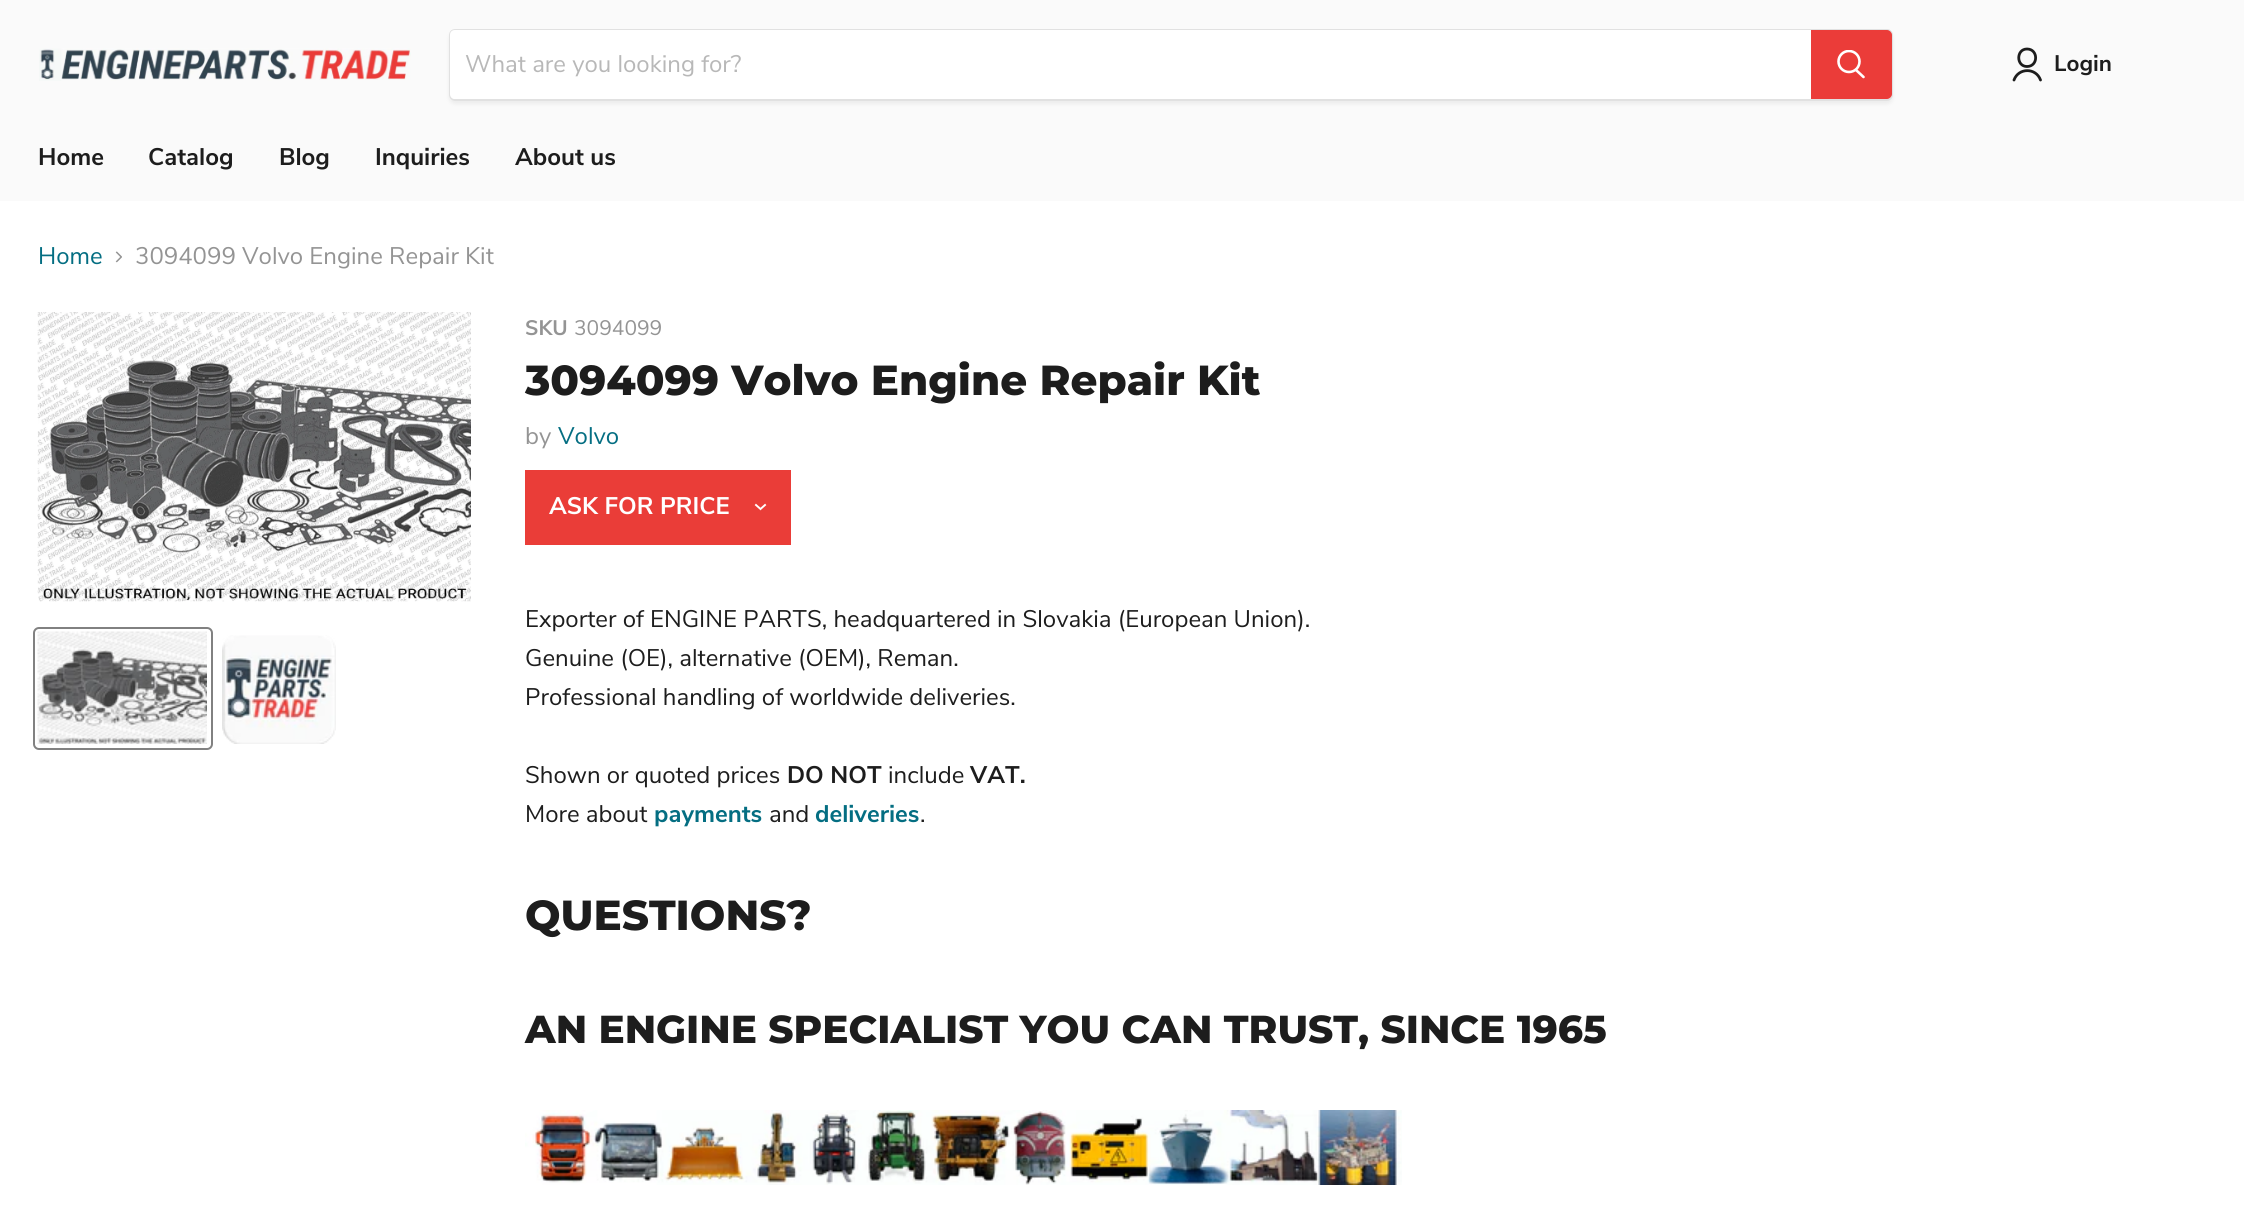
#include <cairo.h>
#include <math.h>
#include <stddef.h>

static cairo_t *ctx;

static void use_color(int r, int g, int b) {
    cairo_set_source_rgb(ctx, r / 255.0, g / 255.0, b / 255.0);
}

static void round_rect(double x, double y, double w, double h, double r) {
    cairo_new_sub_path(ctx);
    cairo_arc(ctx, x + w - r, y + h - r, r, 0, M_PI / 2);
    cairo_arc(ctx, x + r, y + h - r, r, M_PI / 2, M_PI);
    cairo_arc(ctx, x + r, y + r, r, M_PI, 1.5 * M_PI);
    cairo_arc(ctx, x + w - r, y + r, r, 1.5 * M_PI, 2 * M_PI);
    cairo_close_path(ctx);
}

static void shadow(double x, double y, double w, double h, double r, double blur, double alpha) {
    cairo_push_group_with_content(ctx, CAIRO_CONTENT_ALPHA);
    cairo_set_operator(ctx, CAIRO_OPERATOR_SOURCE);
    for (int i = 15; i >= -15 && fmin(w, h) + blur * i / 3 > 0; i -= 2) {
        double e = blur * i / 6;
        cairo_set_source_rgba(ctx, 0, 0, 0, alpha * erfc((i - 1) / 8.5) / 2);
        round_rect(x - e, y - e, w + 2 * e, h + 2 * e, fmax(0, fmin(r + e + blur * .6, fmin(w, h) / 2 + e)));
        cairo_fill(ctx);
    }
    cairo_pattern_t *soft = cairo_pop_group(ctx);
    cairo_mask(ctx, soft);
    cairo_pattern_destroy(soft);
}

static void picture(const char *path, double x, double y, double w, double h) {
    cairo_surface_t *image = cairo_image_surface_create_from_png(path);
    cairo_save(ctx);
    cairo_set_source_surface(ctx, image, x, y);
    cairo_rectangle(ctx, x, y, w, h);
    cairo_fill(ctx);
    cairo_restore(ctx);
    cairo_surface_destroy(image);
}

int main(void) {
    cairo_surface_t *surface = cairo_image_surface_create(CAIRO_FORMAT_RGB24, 2244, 1205);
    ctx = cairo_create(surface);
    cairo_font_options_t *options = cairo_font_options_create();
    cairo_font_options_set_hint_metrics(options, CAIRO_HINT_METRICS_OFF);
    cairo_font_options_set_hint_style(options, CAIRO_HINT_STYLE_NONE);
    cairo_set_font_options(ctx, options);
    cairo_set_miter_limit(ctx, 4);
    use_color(255, 255, 255);
    cairo_paint(ctx);
    use_color(250, 250, 250);
    cairo_rectangle(ctx, 0, 0, 2244, 201);
    cairo_fill(ctx);
    picture("img1.png", 39, 48, 372, 33);
    cairo_save(ctx);
    cairo_set_fill_rule(ctx, CAIRO_FILL_RULE_EVEN_ODD);
    cairo_new_path(ctx);
    cairo_move_to(ctx, 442, 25);
    cairo_line_to(ctx, 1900, 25);
    cairo_line_to(ctx, 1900, 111);
    cairo_line_to(ctx, 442, 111);
    cairo_close_path(ctx);
    cairo_move_to(ctx, 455, 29);
    cairo_line_to(ctx, 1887, 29);
    cairo_curve_to(ctx, 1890.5, 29, 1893, 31.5, 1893, 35);
    cairo_line_to(ctx, 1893, 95);
    cairo_curve_to(ctx, 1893, 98.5, 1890.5, 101, 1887, 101);
    cairo_line_to(ctx, 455, 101);
    cairo_curve_to(ctx, 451.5, 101, 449, 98.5, 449, 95);
    cairo_line_to(ctx, 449, 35);
    cairo_curve_to(ctx, 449, 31.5, 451.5, 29, 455, 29);
    cairo_close_path(ctx);
    cairo_clip(ctx);
    use_color(128, 128, 128);
    shadow(449, 32, 1444, 72, 6, 2, 0.11);
    cairo_restore(ctx);
    round_rect(450, 30, 1442, 70, 5);
    cairo_set_source_rgba(ctx, 0.502, 0.502, 0.502, 0.2);
    cairo_stroke(ctx);
    use_color(255, 255, 255);
    cairo_new_path(ctx);
    cairo_move_to(ctx, 455, 30);
    cairo_line_to(ctx, 1811, 30);
    cairo_line_to(ctx, 1811, 99);
    cairo_line_to(ctx, 455, 99);
    cairo_curve_to(ctx, 452, 99, 450, 97, 450, 94);
    cairo_line_to(ctx, 450, 35);
    cairo_curve_to(ctx, 450, 32, 452, 30, 455, 30);
    cairo_close_path(ctx);
    cairo_fill(ctx);
    cairo_select_font_face(ctx, "Nunito Sans", CAIRO_FONT_SLANT_NORMAL, CAIRO_FONT_WEIGHT_NORMAL);
    cairo_set_font_size(ctx, 24);
    use_color(184, 184, 184);
    cairo_move_to(ctx, 465, 72);
    cairo_show_text(ctx, "What are you looking for?");
    use_color(235, 60, 57);
    cairo_new_path(ctx);
    cairo_move_to(ctx, 1812, 31);
    cairo_line_to(ctx, 1887, 31);
    cairo_curve_to(ctx, 1889, 31, 1891, 33, 1891, 35);
    cairo_line_to(ctx, 1891, 94);
    cairo_curve_to(ctx, 1891, 96, 1889, 98, 1887, 98);
    cairo_line_to(ctx, 1812, 98);
    cairo_close_path(ctx);
    cairo_fill_preserve(ctx);
    cairo_stroke(ctx);
    cairo_new_path(ctx);
    cairo_move_to(ctx, 1863.5, 77);
    cairo_line_to(ctx, 1856, 70);
    use_color(255, 255, 255);
    cairo_set_line_width(ctx, 2.6);
    cairo_set_line_cap(ctx, CAIRO_LINE_CAP_ROUND);
    cairo_stroke(ctx);
    cairo_save(ctx);
    cairo_rectangle(ctx, 1836, 50, 30, 31);
    cairo_clip(ctx);
    cairo_arc(ctx, 1849, 61.5, 10.5, 0, 2 * M_PI);
    cairo_set_line_cap(ctx, CAIRO_LINE_CAP_BUTT);
    cairo_stroke(ctx);
    cairo_restore(ctx);
    cairo_new_path(ctx);
    cairo_move_to(ctx, 2027, 66.5);
    cairo_curve_to(ctx, 2038.5, 66.5, 2038.5, 49, 2027, 49);
    cairo_curve_to(ctx, 2016, 49, 2016, 66.5, 2027, 66.5);
    cairo_close_path(ctx);
    cairo_move_to(ctx, 2040.5, 80);
    cairo_curve_to(ctx, 2036, 67.5, 2018.5, 67.5, 2014, 80);
    use_color(29, 29, 29);
    cairo_set_line_width(ctx, 2.8);
    cairo_set_line_join(ctx, CAIRO_LINE_JOIN_ROUND);
    cairo_stroke(ctx);
    cairo_select_font_face(ctx, "Nunito Sans", CAIRO_FONT_SLANT_NORMAL, CAIRO_FONT_WEIGHT_BOLD);
    cairo_set_font_size(ctx, 22.5);
    cairo_move_to(ctx, 2054, 71);
    cairo_show_text(ctx, "Login");
    cairo_set_font_size(ctx, 24);
    cairo_move_to(ctx, 38, 165);
    cairo_show_text(ctx, "Home");
    cairo_move_to(ctx, 148, 165);
    cairo_show_text(ctx, "Catalog");
    cairo_move_to(ctx, 279, 165);
    cairo_show_text(ctx, "Blog");
    cairo_move_to(ctx, 375, 165);
    cairo_show_text(ctx, "Inquiries");
    cairo_move_to(ctx, 515, 165);
    cairo_show_text(ctx, "About us");
    cairo_select_font_face(ctx, "Nunito Sans", CAIRO_FONT_SLANT_NORMAL, CAIRO_FONT_WEIGHT_NORMAL);
    use_color(4, 110, 130);
    cairo_move_to(ctx, 38, 264);
    cairo_show_text(ctx, "Home");
    picture("img2.png", 115, 251, 7, 12);
    use_color(148, 148, 148);
    cairo_move_to(ctx, 135, 264);
    cairo_show_text(ctx, "3094099 Volvo Engine Repair Kit");
    picture("img3.png", 37, 312, 434, 290);
    round_rect(34, 628, 178, 121, 5);
    use_color(129, 129, 129);
    cairo_set_line_width(ctx, 2);
    cairo_set_line_cap(ctx, CAIRO_LINE_CAP_BUTT);
    cairo_set_line_join(ctx, CAIRO_LINE_JOIN_MITER);
    cairo_stroke(ctx);
    picture("img4.png", 37, 631, 170, 113);
    picture("img5.png", 222, 635, 114, 109);
    cairo_select_font_face(ctx, "Nunito Sans", CAIRO_FONT_SLANT_NORMAL, CAIRO_FONT_WEIGHT_BOLD);
    cairo_set_font_size(ctx, 21);
    use_color(148, 148, 148);
    cairo_move_to(ctx, 525, 335);
    cairo_show_text(ctx, "SKU");
    cairo_select_font_face(ctx, "Nunito Sans", CAIRO_FONT_SLANT_NORMAL, CAIRO_FONT_WEIGHT_NORMAL);
    cairo_move_to(ctx, 574, 335);
    cairo_show_text(ctx, "3094099");
    cairo_select_font_face(ctx, "Montserrat ExtraBold", CAIRO_FONT_SLANT_NORMAL, CAIRO_FONT_WEIGHT_NORMAL);
    cairo_set_font_size(ctx, 42);
    use_color(29, 29, 29);
    cairo_move_to(ctx, 525, 395);
    cairo_show_text(ctx, "3094099 Volvo Engine Repair Kit");
    cairo_select_font_face(ctx, "Nunito Sans", CAIRO_FONT_SLANT_NORMAL, CAIRO_FONT_WEIGHT_NORMAL);
    cairo_set_font_size(ctx, 24);
    use_color(148, 148, 148);
    cairo_move_to(ctx, 525, 444);
    cairo_show_text(ctx, "by");
    use_color(4, 110, 130);
    cairo_move_to(ctx, 558, 444);
    cairo_show_text(ctx, "Volvo");
    use_color(234, 61, 56);
    cairo_rectangle(ctx, 525, 470, 266, 75);
    cairo_fill(ctx);
    cairo_select_font_face(ctx, "Nunito Sans", CAIRO_FONT_SLANT_NORMAL, CAIRO_FONT_WEIGHT_BOLD);
    use_color(255, 255, 255);
    cairo_move_to(ctx, 549, 514);
    cairo_show_text(ctx, "ASK FOR PRICE");
    cairo_new_path(ctx);
    cairo_move_to(ctx, 760.5, 509);
    cairo_line_to(ctx, 765, 505);
    cairo_move_to(ctx, 760.5, 509);
    cairo_line_to(ctx, 756, 505);
    cairo_set_line_width(ctx, 1.9);
    cairo_set_line_cap(ctx, CAIRO_LINE_CAP_SQUARE);
    cairo_stroke(ctx);
    cairo_select_font_face(ctx, "Nunito Sans", CAIRO_FONT_SLANT_NORMAL, CAIRO_FONT_WEIGHT_NORMAL);
    use_color(29, 29, 29);
    cairo_move_to(ctx, 525, 627);
    cairo_show_text(ctx, "Exporter of ENGINE PARTS, headquartered in Slovakia (European Union).");
    cairo_move_to(ctx, 525, 666);
    cairo_show_text(ctx, "Genuine (OE), alternative (OEM), Reman.");
    cairo_move_to(ctx, 525, 705);
    cairo_show_text(ctx, "Professional handling of worldwide deliveries.");
    cairo_move_to(ctx, 525, 783);
    cairo_show_text(ctx, "Shown or quoted prices");
    cairo_select_font_face(ctx, "Nunito Sans", CAIRO_FONT_SLANT_NORMAL, CAIRO_FONT_WEIGHT_BOLD);
    cairo_move_to(ctx, 787, 783);
    cairo_show_text(ctx, "DO NOT");
    cairo_select_font_face(ctx, "Nunito Sans", CAIRO_FONT_SLANT_NORMAL, CAIRO_FONT_WEIGHT_NORMAL);
    cairo_move_to(ctx, 888, 783);
    cairo_show_text(ctx, "include");
    cairo_select_font_face(ctx, "Nunito Sans", CAIRO_FONT_SLANT_NORMAL, CAIRO_FONT_WEIGHT_BOLD);
    cairo_move_to(ctx, 970, 783);
    cairo_show_text(ctx, "VAT.");
    cairo_select_font_face(ctx, "Nunito Sans", CAIRO_FONT_SLANT_NORMAL, CAIRO_FONT_WEIGHT_NORMAL);
    cairo_move_to(ctx, 525, 822);
    cairo_show_text(ctx, "More about");
    cairo_select_font_face(ctx, "Nunito Sans", CAIRO_FONT_SLANT_NORMAL, CAIRO_FONT_WEIGHT_BOLD);
    use_color(4, 110, 130);
    cairo_move_to(ctx, 654, 822);
    cairo_show_text(ctx, "payments");
    cairo_select_font_face(ctx, "Nunito Sans", CAIRO_FONT_SLANT_NORMAL, CAIRO_FONT_WEIGHT_NORMAL);
    use_color(29, 29, 29);
    cairo_move_to(ctx, 769, 822);
    cairo_show_text(ctx, "and");
    cairo_select_font_face(ctx, "Nunito Sans", CAIRO_FONT_SLANT_NORMAL, CAIRO_FONT_WEIGHT_BOLD);
    use_color(4, 110, 130);
    cairo_move_to(ctx, 815, 822);
    cairo_show_text(ctx, "deliveries");
    cairo_select_font_face(ctx, "Nunito Sans", CAIRO_FONT_SLANT_NORMAL, CAIRO_FONT_WEIGHT_NORMAL);
    use_color(29, 29, 29);
    cairo_move_to(ctx, 920, 822);
    cairo_show_text(ctx, ".");
    cairo_select_font_face(ctx, "Montserrat ExtraBold", CAIRO_FONT_SLANT_NORMAL, CAIRO_FONT_WEIGHT_NORMAL);
    cairo_set_font_size(ctx, 42);
    cairo_move_to(ctx, 525, 930);
    cairo_show_text(ctx, "QUESTIONS?");
    cairo_set_font_size(ctx, 39);
    cairo_move_to(ctx, 525, 1043);
    cairo_show_text(ctx, "AN ENGINE SPECIALIST YOU CAN TRUST, SINCE 1965");
    picture("img6.png", 525, 1110, 877, 75);
    cairo_surface_write_to_png(surface, "result.png");
    cairo_font_options_destroy(options);
    cairo_destroy(ctx);
    cairo_surface_destroy(surface);
    return 0;
}
